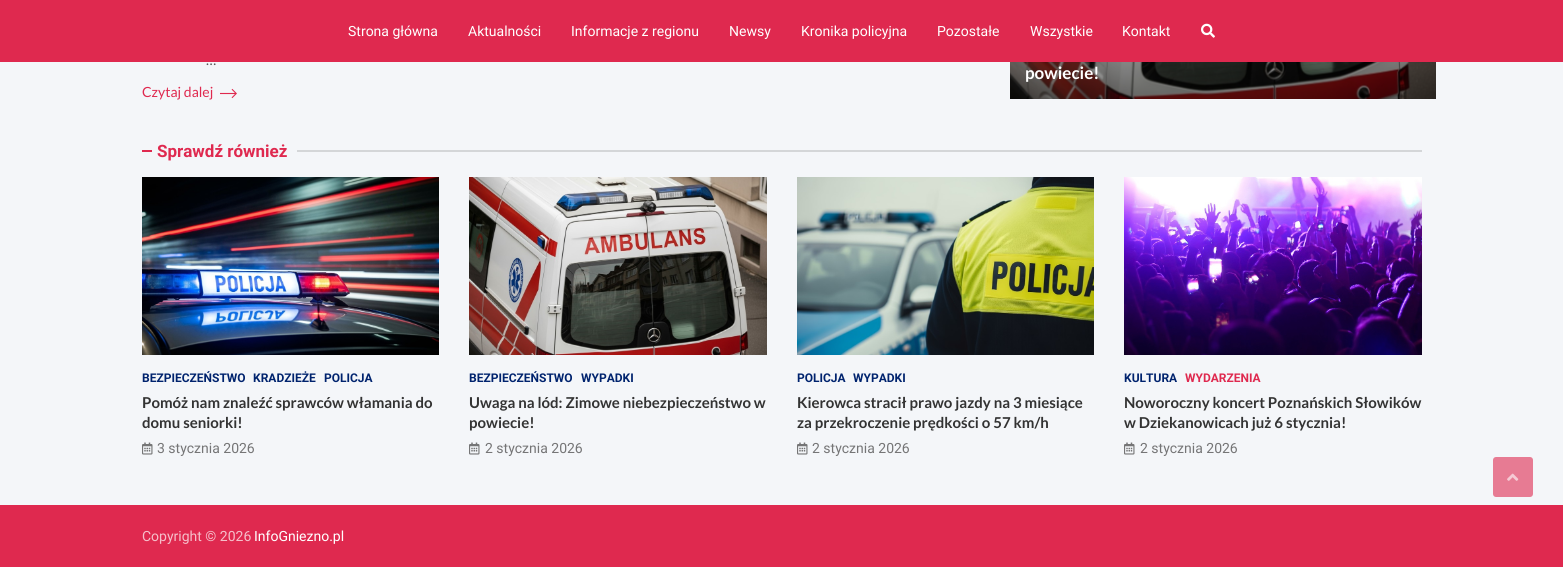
#include <cairo.h>
#include <math.h>
#include <stddef.h>

static cairo_t *ctx;

static void use_color(int r, int g, int b) {
    cairo_set_source_rgb(ctx, r / 255.0, g / 255.0, b / 255.0);
}

static void round_rect(double x, double y, double w, double h, double r) {
    cairo_new_sub_path(ctx);
    cairo_arc(ctx, x + w - r, y + h - r, r, 0, M_PI / 2);
    cairo_arc(ctx, x + r, y + h - r, r, M_PI / 2, M_PI);
    cairo_arc(ctx, x + r, y + r, r, M_PI, 1.5 * M_PI);
    cairo_arc(ctx, x + w - r, y + r, r, 1.5 * M_PI, 2 * M_PI);
    cairo_close_path(ctx);
}

static void picture(const char *path, double x, double y, double w, double h) {
    cairo_surface_t *image = cairo_image_surface_create_from_png(path);
    cairo_save(ctx);
    cairo_set_source_surface(ctx, image, x, y);
    cairo_rectangle(ctx, x, y, w, h);
    cairo_fill(ctx);
    cairo_restore(ctx);
    cairo_surface_destroy(image);
}

int main(void) {
    cairo_surface_t *surface = cairo_image_surface_create(CAIRO_FORMAT_RGB24, 1563, 567);
    ctx = cairo_create(surface);
    cairo_font_options_t *options = cairo_font_options_create();
    cairo_font_options_set_hint_metrics(options, CAIRO_HINT_METRICS_OFF);
    cairo_font_options_set_hint_style(options, CAIRO_HINT_STYLE_NONE);
    cairo_set_font_options(ctx, options);
    cairo_set_miter_limit(ctx, 4);
    use_color(244, 246, 249);
    cairo_paint(ctx);
    use_color(223, 41, 79);
    cairo_rectangle(ctx, 0, 0, 1563, 62);
    cairo_fill(ctx);
    cairo_select_font_face(ctx, "Roboto", CAIRO_FONT_SLANT_NORMAL, CAIRO_FONT_WEIGHT_NORMAL);
    cairo_set_font_size(ctx, 14);
    use_color(255, 255, 255);
    cairo_move_to(ctx, 348, 36);
    cairo_show_text(ctx, "Strona główna");
    cairo_move_to(ctx, 468, 36);
    cairo_show_text(ctx, "Aktualności");
    cairo_move_to(ctx, 571, 36);
    cairo_show_text(ctx, "Informacje z regionu");
    cairo_move_to(ctx, 729, 36);
    cairo_show_text(ctx, "Newsy");
    cairo_move_to(ctx, 801, 36);
    cairo_show_text(ctx, "Kronika policyjna");
    cairo_move_to(ctx, 937, 36);
    cairo_show_text(ctx, "Pozostałe");
    cairo_move_to(ctx, 1030, 36);
    cairo_show_text(ctx, "Wszystkie");
    cairo_move_to(ctx, 1122, 36);
    cairo_show_text(ctx, "Kontakt");
    picture("img1.png", 1201, 23, 14, 15);
    cairo_select_font_face(ctx, "Lato", CAIRO_FONT_SLANT_NORMAL, CAIRO_FONT_WEIGHT_NORMAL);
    use_color(85, 85, 85);
    cairo_move_to(ctx, 206, 65);
    cairo_show_text(ctx, "…");
    use_color(223, 41, 79);
    cairo_move_to(ctx, 142, 97);
    cairo_show_text(ctx, "Czytaj dalej");
    picture("img2.png", 220, 88, 17, 11);
    picture("img3.png", 1010, 62, 426, 37);
    cairo_select_font_face(ctx, "Lato", CAIRO_FONT_SLANT_NORMAL, CAIRO_FONT_WEIGHT_BOLD);
    cairo_set_font_size(ctx, 17);
    use_color(255, 255, 255);
    cairo_move_to(ctx, 1025, 79);
    cairo_show_text(ctx, "powiecie!");
    use_color(223, 41, 79);
    cairo_rectangle(ctx, 142, 150, 10, 2);
    cairo_fill(ctx);
    cairo_select_font_face(ctx, "Roboto", CAIRO_FONT_SLANT_NORMAL, CAIRO_FONT_WEIGHT_BOLD);
    cairo_move_to(ctx, 157, 157);
    cairo_show_text(ctx, "Sprawdź również");
    use_color(212, 214, 216);
    cairo_rectangle(ctx, 297, 150, 1125, 2);
    cairo_fill(ctx);
    picture("img4.png", 142, 177, 297, 178);
    cairo_set_font_size(ctx, 12);
    use_color(0, 35, 110);
    cairo_move_to(ctx, 142, 382);
    cairo_show_text(ctx, "BEZPIECZEŃSTWO");
    cairo_move_to(ctx, 253, 382);
    cairo_show_text(ctx, "KRADZIEŻE");
    cairo_move_to(ctx, 324, 382);
    cairo_show_text(ctx, "POLICJA");
    cairo_select_font_face(ctx, "Lato", CAIRO_FONT_SLANT_NORMAL, CAIRO_FONT_WEIGHT_BOLD);
    cairo_set_font_size(ctx, 15);
    use_color(51, 51, 51);
    cairo_move_to(ctx, 142, 408);
    cairo_show_text(ctx, "Pomóż nam znaleźć sprawców włamania do");
    cairo_move_to(ctx, 142, 428);
    cairo_show_text(ctx, "domu seniorki!");
    picture("img5.png", 142, 442, 11, 13);
    cairo_select_font_face(ctx, "Roboto", CAIRO_FONT_SLANT_NORMAL, CAIRO_FONT_WEIGHT_NORMAL);
    cairo_set_font_size(ctx, 14);
    use_color(117, 117, 118);
    cairo_move_to(ctx, 157, 453);
    cairo_show_text(ctx, "3 stycznia 2026");
    picture("img6.png", 469, 177, 298, 178);
    cairo_select_font_face(ctx, "Roboto", CAIRO_FONT_SLANT_NORMAL, CAIRO_FONT_WEIGHT_BOLD);
    cairo_set_font_size(ctx, 12);
    use_color(0, 35, 110);
    cairo_move_to(ctx, 469, 382);
    cairo_show_text(ctx, "BEZPIECZEŃSTWO");
    cairo_move_to(ctx, 581, 382);
    cairo_show_text(ctx, "WYPADKI");
    cairo_select_font_face(ctx, "Lato", CAIRO_FONT_SLANT_NORMAL, CAIRO_FONT_WEIGHT_BOLD);
    cairo_set_font_size(ctx, 15);
    use_color(51, 51, 51);
    cairo_move_to(ctx, 469, 408);
    cairo_show_text(ctx, "Uwaga na lód: Zimowe niebezpieczeństwo w");
    cairo_move_to(ctx, 469, 428);
    cairo_show_text(ctx, "powiecie!");
    picture("img5.png", 469, 442, 11, 13);
    cairo_select_font_face(ctx, "Roboto", CAIRO_FONT_SLANT_NORMAL, CAIRO_FONT_WEIGHT_NORMAL);
    cairo_set_font_size(ctx, 14);
    use_color(117, 117, 118);
    cairo_move_to(ctx, 485, 453);
    cairo_show_text(ctx, "2 stycznia 2026");
    picture("img7.png", 797, 177, 297, 178);
    cairo_select_font_face(ctx, "Roboto", CAIRO_FONT_SLANT_NORMAL, CAIRO_FONT_WEIGHT_BOLD);
    cairo_set_font_size(ctx, 12);
    use_color(0, 35, 110);
    cairo_move_to(ctx, 797, 382);
    cairo_show_text(ctx, "POLICJA");
    cairo_move_to(ctx, 853, 382);
    cairo_show_text(ctx, "WYPADKI");
    cairo_select_font_face(ctx, "Lato", CAIRO_FONT_SLANT_NORMAL, CAIRO_FONT_WEIGHT_BOLD);
    cairo_set_font_size(ctx, 15);
    use_color(51, 51, 51);
    cairo_move_to(ctx, 797, 408);
    cairo_show_text(ctx, "Kierowca stracił prawo jazdy na 3 miesiące");
    cairo_move_to(ctx, 797, 428);
    cairo_show_text(ctx, "za przekroczenie prędkości o 57 km/h");
    picture("img5.png", 797, 442, 11, 13);
    cairo_select_font_face(ctx, "Roboto", CAIRO_FONT_SLANT_NORMAL, CAIRO_FONT_WEIGHT_NORMAL);
    cairo_set_font_size(ctx, 14);
    use_color(117, 117, 118);
    cairo_move_to(ctx, 812, 453);
    cairo_show_text(ctx, "2 stycznia 2026");
    picture("img8.png", 1124, 177, 298, 178);
    cairo_select_font_face(ctx, "Roboto", CAIRO_FONT_SLANT_NORMAL, CAIRO_FONT_WEIGHT_BOLD);
    cairo_set_font_size(ctx, 12);
    use_color(0, 35, 110);
    cairo_move_to(ctx, 1124, 382);
    cairo_show_text(ctx, "KULTURA");
    use_color(223, 41, 79);
    cairo_move_to(ctx, 1185, 382);
    cairo_show_text(ctx, "WYDARZENIA");
    cairo_select_font_face(ctx, "Lato", CAIRO_FONT_SLANT_NORMAL, CAIRO_FONT_WEIGHT_BOLD);
    cairo_set_font_size(ctx, 15);
    use_color(51, 51, 51);
    cairo_move_to(ctx, 1124, 408);
    cairo_show_text(ctx, "Noworoczny koncert Poznańskich Słowików");
    cairo_move_to(ctx, 1124, 428);
    cairo_show_text(ctx, "w Dziekanowicach już 6 stycznia!");
    picture("img5.png", 1124, 442, 11, 13);
    cairo_select_font_face(ctx, "Roboto", CAIRO_FONT_SLANT_NORMAL, CAIRO_FONT_WEIGHT_NORMAL);
    cairo_set_font_size(ctx, 14);
    use_color(117, 117, 118);
    cairo_move_to(ctx, 1140, 453);
    cairo_show_text(ctx, "2 stycznia 2026");
    use_color(223, 41, 79);
    cairo_rectangle(ctx, 0, 505, 1563, 62);
    cairo_fill(ctx);
    use_color(245, 191, 202);
    cairo_move_to(ctx, 142, 541);
    cairo_show_text(ctx, "Copyright © 2026");
    use_color(255, 255, 255);
    cairo_move_to(ctx, 254, 541);
    cairo_show_text(ctx, "InfoGniezno.pl");
    use_color(231, 123, 147);
    round_rect(1493, 457, 40, 40, 3);
    cairo_fill(ctx);
    picture("img9.png", 1507, 473, 12, 8);
    cairo_surface_write_to_png(surface, "result.png");
    cairo_font_options_destroy(options);
    cairo_destroy(ctx);
    cairo_surface_destroy(surface);
    return 0;
}
